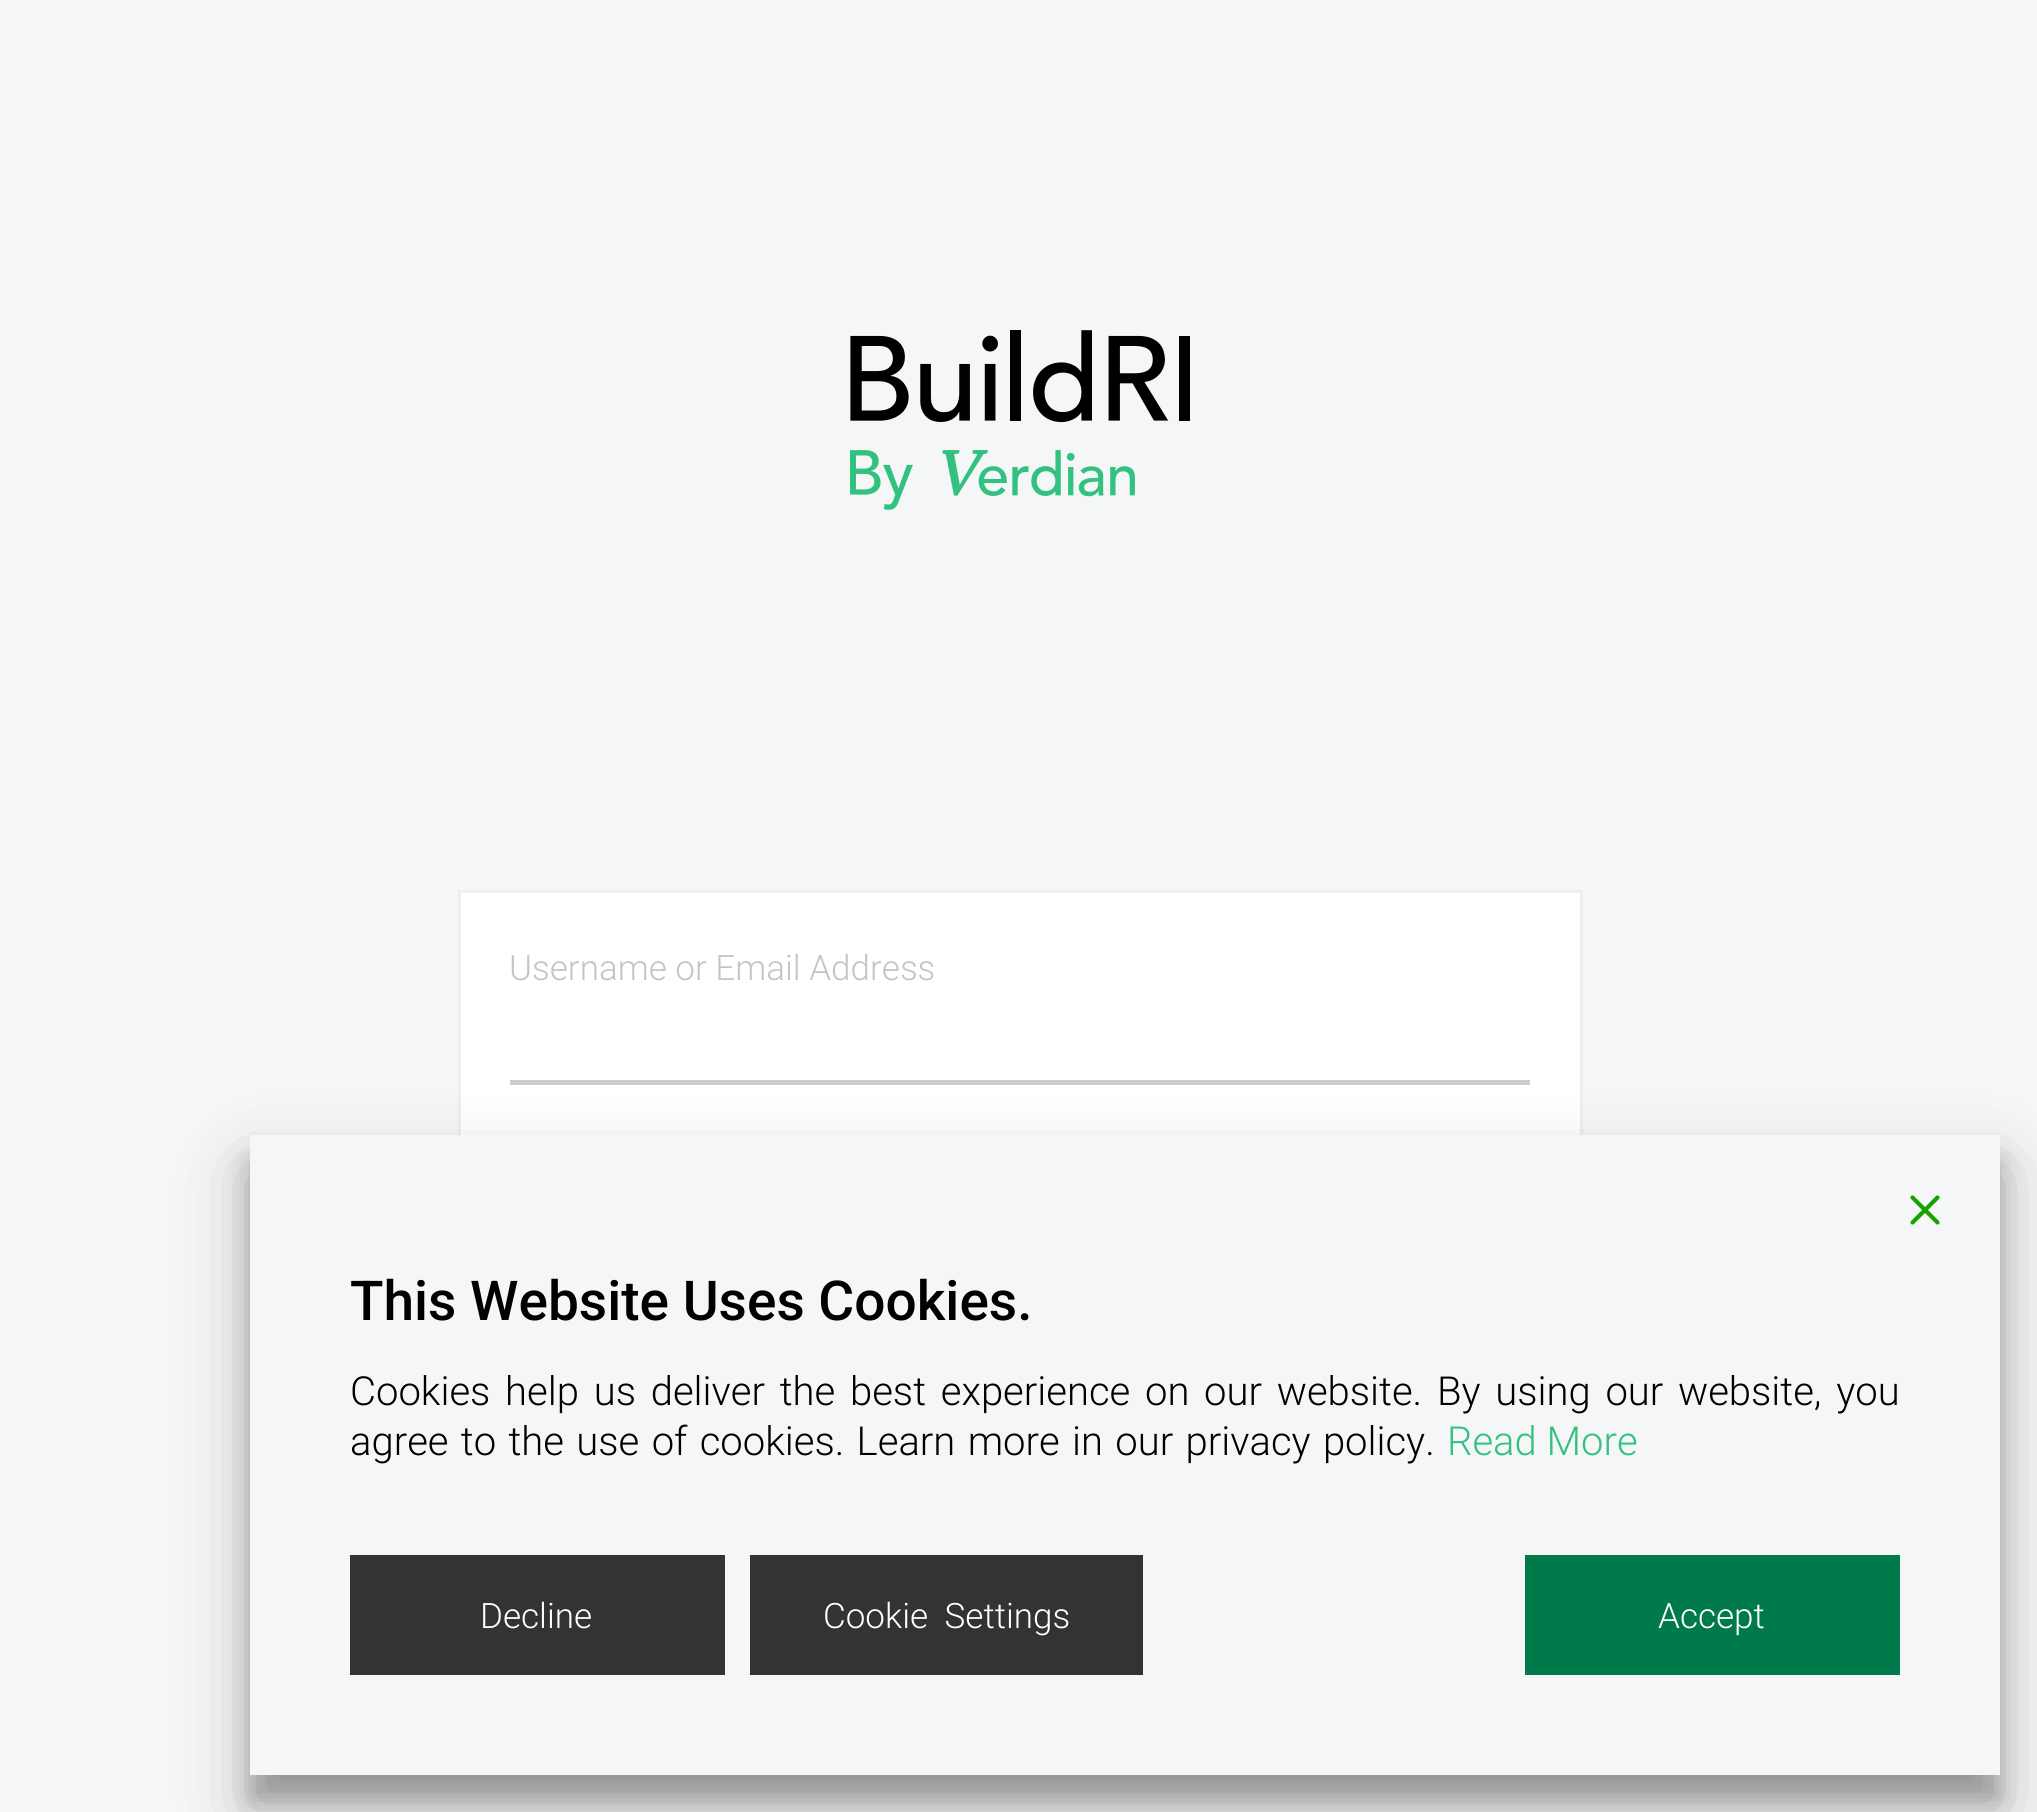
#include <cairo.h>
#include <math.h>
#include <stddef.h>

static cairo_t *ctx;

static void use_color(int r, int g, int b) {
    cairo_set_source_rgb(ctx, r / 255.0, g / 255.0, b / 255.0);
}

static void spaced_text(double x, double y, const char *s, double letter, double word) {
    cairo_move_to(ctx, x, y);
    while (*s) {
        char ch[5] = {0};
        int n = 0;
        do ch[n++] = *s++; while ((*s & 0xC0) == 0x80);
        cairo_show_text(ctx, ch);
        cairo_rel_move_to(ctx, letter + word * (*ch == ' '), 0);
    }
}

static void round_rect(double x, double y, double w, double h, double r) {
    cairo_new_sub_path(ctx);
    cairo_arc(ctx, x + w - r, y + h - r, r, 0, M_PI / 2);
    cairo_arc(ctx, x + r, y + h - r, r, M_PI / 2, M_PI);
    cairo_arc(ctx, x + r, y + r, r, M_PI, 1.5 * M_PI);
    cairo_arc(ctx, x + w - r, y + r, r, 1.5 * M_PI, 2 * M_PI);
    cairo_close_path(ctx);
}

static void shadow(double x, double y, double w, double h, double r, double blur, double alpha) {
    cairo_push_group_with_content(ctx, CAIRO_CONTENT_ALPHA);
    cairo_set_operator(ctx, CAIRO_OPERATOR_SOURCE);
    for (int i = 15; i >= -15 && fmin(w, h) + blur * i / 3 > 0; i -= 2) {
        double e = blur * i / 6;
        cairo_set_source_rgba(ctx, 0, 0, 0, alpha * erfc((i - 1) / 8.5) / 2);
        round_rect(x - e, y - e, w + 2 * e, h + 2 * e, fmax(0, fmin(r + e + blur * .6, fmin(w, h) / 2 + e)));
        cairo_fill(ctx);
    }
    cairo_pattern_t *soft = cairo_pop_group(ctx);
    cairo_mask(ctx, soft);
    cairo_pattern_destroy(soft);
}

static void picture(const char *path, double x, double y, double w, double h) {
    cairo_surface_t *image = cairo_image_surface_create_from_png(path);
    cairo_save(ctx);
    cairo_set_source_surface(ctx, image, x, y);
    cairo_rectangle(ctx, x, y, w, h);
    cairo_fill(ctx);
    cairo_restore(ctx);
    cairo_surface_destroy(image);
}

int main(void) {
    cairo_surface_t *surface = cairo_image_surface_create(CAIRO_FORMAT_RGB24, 2037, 1812);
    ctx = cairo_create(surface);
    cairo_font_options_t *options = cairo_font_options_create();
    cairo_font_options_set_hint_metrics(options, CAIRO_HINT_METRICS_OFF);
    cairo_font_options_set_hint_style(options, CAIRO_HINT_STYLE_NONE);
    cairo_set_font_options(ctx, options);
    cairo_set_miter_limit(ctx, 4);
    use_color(245, 246, 248);
    cairo_paint(ctx);
    picture("img1.png", 850, 330, 340, 180);
    use_color(255, 255, 255);
    cairo_rectangle(ctx, 461, 893, 1119, 242);
    cairo_fill(ctx);
    use_color(238, 238, 238);
    cairo_rectangle(ctx, 458, 890, 1125, 3);
    cairo_fill(ctx);
    cairo_rectangle(ctx, 1580, 890, 3, 245);
    cairo_fill(ctx);
    cairo_rectangle(ctx, 458, 890, 3, 245);
    cairo_fill(ctx);
    cairo_select_font_face(ctx, "Roboto Light", CAIRO_FONT_SLANT_NORMAL, CAIRO_FONT_WEIGHT_NORMAL);
    cairo_set_font_size(ctx, 35);
    use_color(196, 196, 196);
    cairo_move_to(ctx, 509, 980);
    cairo_show_text(ctx, "Username or Email Address");
    use_color(206, 206, 206);
    cairo_rectangle(ctx, 510, 1080, 1020, 5);
    cairo_fill(ctx);
    use_color(0, 0, 0);
    shadow(250, 1160, 1750, 640, 0, 12.5, 0.22);
    shadow(250, 1170, 1750, 640, 0, 35, 0.25);
    use_color(245, 246, 248);
    cairo_rectangle(ctx, 250, 1135, 1750, 640);
    cairo_fill(ctx);
    picture("img2.png", 1910, 1195, 30, 30);
    cairo_select_font_face(ctx, "Roboto Medium", CAIRO_FONT_SLANT_NORMAL, CAIRO_FONT_WEIGHT_NORMAL);
    cairo_set_font_size(ctx, 55);
    use_color(0, 0, 0);
    cairo_move_to(ctx, 350, 1320);
    cairo_show_text(ctx, "This Website Uses Cookies.");
    cairo_select_font_face(ctx, "Roboto Light", CAIRO_FONT_SLANT_NORMAL, CAIRO_FONT_WEIGHT_NORMAL);
    cairo_set_font_size(ctx, 40);
    spaced_text(350, 1405, "Cookies help us deliver the best experience on our website. By using our website, you", 0, 5);
    spaced_text(350, 1455, "agree to the use of cookies. Learn more in our privacy policy.", 0, 2.6);
    use_color(51, 193, 128);
    cairo_move_to(ctx, 1447, 1455);
    cairo_show_text(ctx, "Read More");
    use_color(51, 51, 51);
    cairo_rectangle(ctx, 350, 1555, 375, 120);
    cairo_fill(ctx);
    cairo_set_font_size(ctx, 35);
    use_color(255, 255, 255);
    cairo_move_to(ctx, 480, 1628);
    cairo_show_text(ctx, "Decline");
    use_color(51, 51, 51);
    cairo_rectangle(ctx, 750, 1555, 393, 120);
    cairo_fill(ctx);
    use_color(255, 255, 255);
    spaced_text(823, 1628, "Cookie Settings", 0, 8);
    use_color(0, 122, 75);
    cairo_rectangle(ctx, 1525, 1555, 375, 120);
    cairo_fill(ctx);
    use_color(255, 255, 255);
    cairo_move_to(ctx, 1658, 1628);
    cairo_show_text(ctx, "Accept");
    cairo_surface_write_to_png(surface, "result.png");
    cairo_font_options_destroy(options);
    cairo_destroy(ctx);
    cairo_surface_destroy(surface);
    return 0;
}
